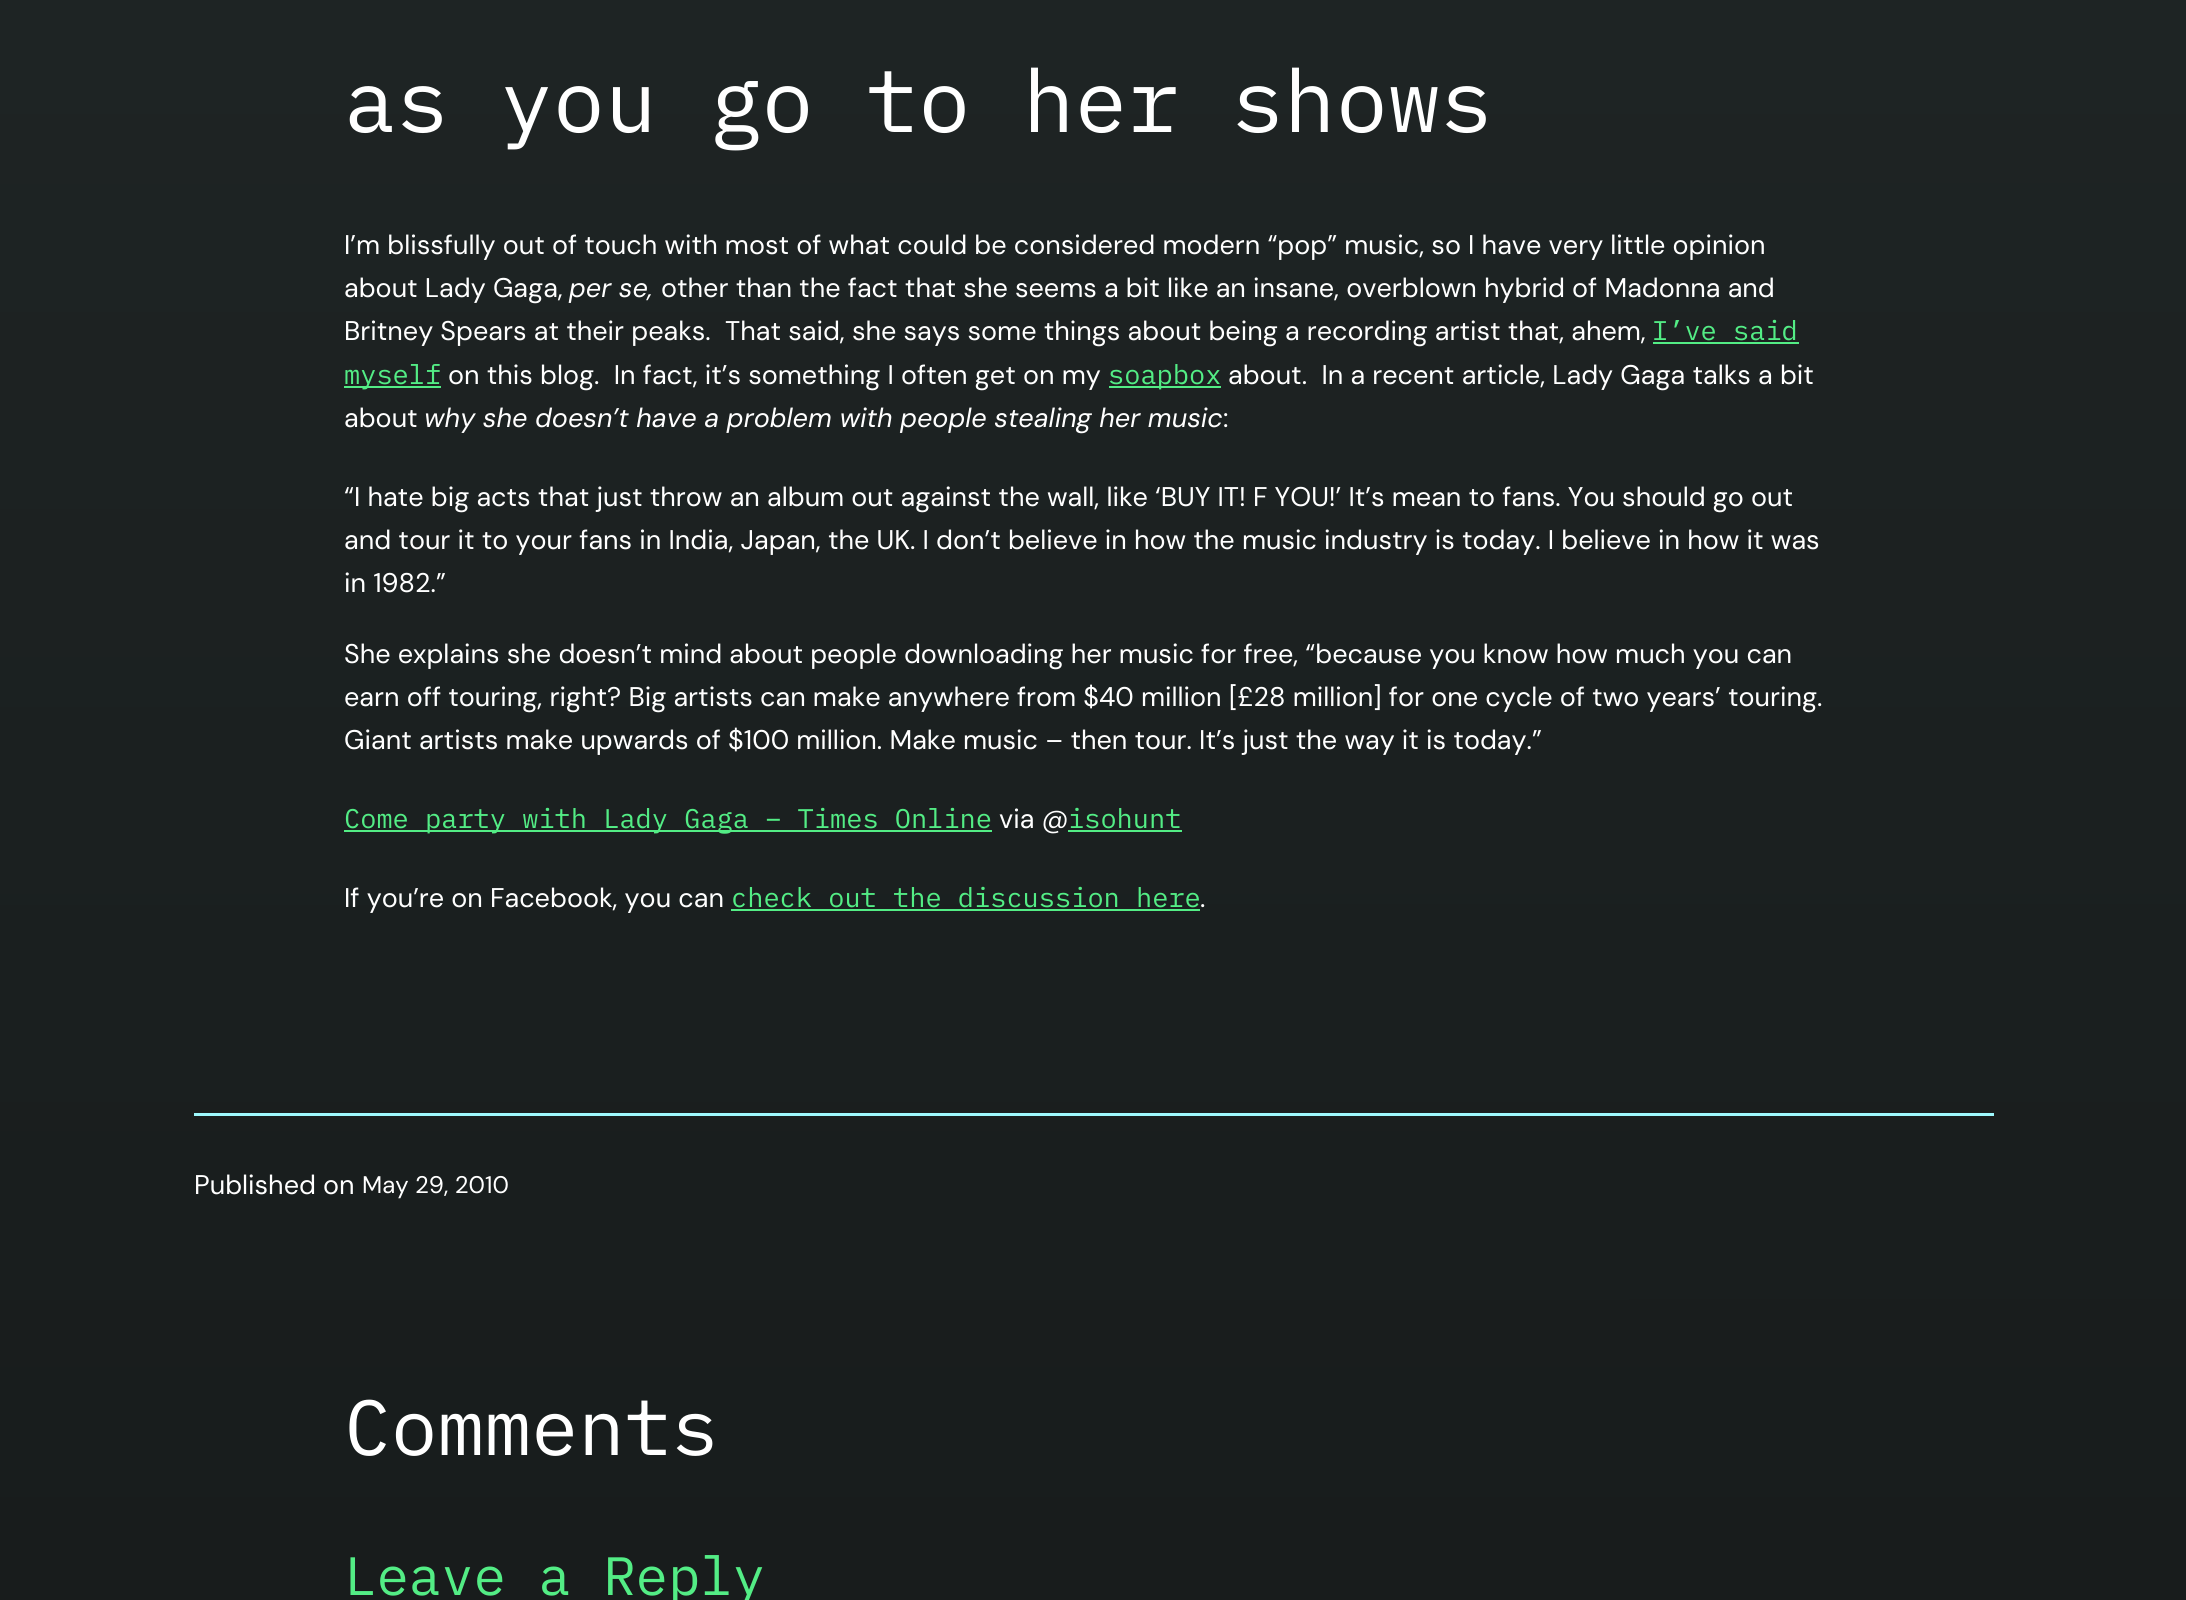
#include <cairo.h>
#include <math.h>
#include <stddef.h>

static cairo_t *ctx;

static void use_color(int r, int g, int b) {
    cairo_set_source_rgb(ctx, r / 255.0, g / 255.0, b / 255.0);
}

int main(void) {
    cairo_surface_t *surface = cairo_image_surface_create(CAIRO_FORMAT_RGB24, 2186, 1600);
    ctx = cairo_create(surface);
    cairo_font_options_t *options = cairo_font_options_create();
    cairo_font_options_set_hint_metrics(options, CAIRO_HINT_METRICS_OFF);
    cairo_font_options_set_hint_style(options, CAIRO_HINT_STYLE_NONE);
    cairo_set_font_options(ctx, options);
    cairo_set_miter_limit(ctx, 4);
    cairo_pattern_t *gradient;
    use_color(255, 255, 255);
    cairo_paint(ctx);
    gradient = cairo_pattern_create_linear(1093, -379, 1094, 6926);
    cairo_pattern_add_color_stop_rgba(gradient, 0, 0.125, 0.149, 0.149, 1);
    cairo_pattern_add_color_stop_rgba(gradient, 1, 0.004, 0.004, 0.004, 1);
    cairo_set_source(ctx, gradient);
    cairo_pattern_destroy(gradient);
    cairo_rectangle(ctx, 0, 0, 2186, 1600);
    cairo_fill(ctx);
    cairo_select_font_face(ctx, "IBM Plex Mono", CAIRO_FONT_SLANT_NORMAL, CAIRO_FONT_WEIGHT_NORMAL);
    cairo_set_font_size(ctx, 87);
    use_color(255, 255, 255);
    cairo_move_to(ctx, 344, 132);
    cairo_show_text(ctx, "as you go to her shows");
    cairo_select_font_face(ctx, "DM Sans", CAIRO_FONT_SLANT_NORMAL, CAIRO_FONT_WEIGHT_NORMAL);
    cairo_set_font_size(ctx, 27);
    cairo_move_to(ctx, 344, 254);
    cairo_show_text(ctx, "I’m blissfully out of touch with most of what could be considered modern “pop” music, so I have very little opinion");
    cairo_move_to(ctx, 344, 297);
    cairo_show_text(ctx, "about Lady Gaga,");
    cairo_select_font_face(ctx, "DM Sans", CAIRO_FONT_SLANT_ITALIC, CAIRO_FONT_WEIGHT_NORMAL);
    cairo_move_to(ctx, 569, 297);
    cairo_show_text(ctx, "per se,");
    cairo_select_font_face(ctx, "DM Sans", CAIRO_FONT_SLANT_NORMAL, CAIRO_FONT_WEIGHT_NORMAL);
    cairo_move_to(ctx, 661, 297);
    cairo_show_text(ctx, "other than the fact that she seems a bit like an insane, overblown hybrid of Madonna and");
    cairo_move_to(ctx, 344, 340);
    cairo_show_text(ctx, "Britney Spears at their peaks.  That said, she says some things about being a recording artist that, ahem,");
    cairo_select_font_face(ctx, "IBM Plex Mono", CAIRO_FONT_SLANT_NORMAL, CAIRO_FONT_WEIGHT_NORMAL);
    use_color(83, 237, 133);
    cairo_move_to(ctx, 1652, 340);
    cairo_show_text(ctx, "I’ve said");
    cairo_rectangle(ctx, 1653, 342, 146, 2);
    cairo_fill(ctx);
    cairo_rectangle(ctx, 344, 386, 97, 2);
    cairo_fill(ctx);
    cairo_move_to(ctx, 344, 384);
    cairo_show_text(ctx, "myself");
    cairo_select_font_face(ctx, "DM Sans", CAIRO_FONT_SLANT_NORMAL, CAIRO_FONT_WEIGHT_NORMAL);
    use_color(255, 255, 255);
    cairo_move_to(ctx, 448, 384);
    cairo_show_text(ctx, "on this blog.  In fact, it’s something I often get on my");
    use_color(83, 237, 133);
    cairo_rectangle(ctx, 1109, 386, 112, 2);
    cairo_fill(ctx);
    cairo_select_font_face(ctx, "IBM Plex Mono", CAIRO_FONT_SLANT_NORMAL, CAIRO_FONT_WEIGHT_NORMAL);
    cairo_move_to(ctx, 1108, 384);
    cairo_show_text(ctx, "soapbox");
    cairo_select_font_face(ctx, "DM Sans", CAIRO_FONT_SLANT_NORMAL, CAIRO_FONT_WEIGHT_NORMAL);
    use_color(255, 255, 255);
    cairo_move_to(ctx, 1228, 384);
    cairo_show_text(ctx, "about.  In a recent article, Lady Gaga talks a bit");
    cairo_move_to(ctx, 344, 427);
    cairo_show_text(ctx, "about");
    cairo_select_font_face(ctx, "DM Sans", CAIRO_FONT_SLANT_ITALIC, CAIRO_FONT_WEIGHT_NORMAL);
    cairo_move_to(ctx, 424, 427);
    cairo_show_text(ctx, "why she doesn’t have a problem with people stealing her music");
    cairo_select_font_face(ctx, "DM Sans", CAIRO_FONT_SLANT_NORMAL, CAIRO_FONT_WEIGHT_NORMAL);
    cairo_move_to(ctx, 1223, 427);
    cairo_show_text(ctx, ":");
    cairo_move_to(ctx, 344, 506);
    cairo_show_text(ctx, "“I hate big acts that just throw an album out against the wall, like ‘BUY IT! F YOU!’ It’s mean to fans. You should go out");
    cairo_move_to(ctx, 344, 549);
    cairo_show_text(ctx, "and tour it to your fans in India, Japan, the UK. I don’t believe in how the music industry is today. I believe in how it was");
    cairo_move_to(ctx, 344, 592);
    cairo_show_text(ctx, "in 1982.”");
    cairo_move_to(ctx, 344, 663);
    cairo_show_text(ctx, "She explains she doesn’t mind about people downloading her music for free, “because you know how much you can");
    cairo_move_to(ctx, 344, 706);
    cairo_show_text(ctx, "earn off touring, right? Big artists can make anywhere from $40 million [£28 million] for one cycle of two years’ touring.");
    cairo_move_to(ctx, 344, 749);
    cairo_show_text(ctx, "Giant artists make upwards of $100 million. Make music – then tour. It’s just the way it is today.”");
    use_color(83, 237, 133);
    cairo_rectangle(ctx, 344, 830, 648, 2);
    cairo_fill(ctx);
    cairo_select_font_face(ctx, "IBM Plex Mono", CAIRO_FONT_SLANT_NORMAL, CAIRO_FONT_WEIGHT_NORMAL);
    cairo_move_to(ctx, 344, 828);
    cairo_show_text(ctx, "Come party with Lady Gaga – Times Online");
    cairo_select_font_face(ctx, "DM Sans", CAIRO_FONT_SLANT_NORMAL, CAIRO_FONT_WEIGHT_NORMAL);
    use_color(255, 255, 255);
    cairo_move_to(ctx, 999, 828);
    cairo_show_text(ctx, "via @");
    cairo_select_font_face(ctx, "IBM Plex Mono", CAIRO_FONT_SLANT_NORMAL, CAIRO_FONT_WEIGHT_NORMAL);
    use_color(83, 237, 133);
    cairo_move_to(ctx, 1068, 828);
    cairo_show_text(ctx, "isohunt");
    cairo_rectangle(ctx, 1068, 830, 114, 2);
    cairo_fill(ctx);
    cairo_select_font_face(ctx, "DM Sans", CAIRO_FONT_SLANT_NORMAL, CAIRO_FONT_WEIGHT_NORMAL);
    use_color(255, 255, 255);
    cairo_move_to(ctx, 344, 907);
    cairo_show_text(ctx, "If you’re on Facebook, you can");
    cairo_select_font_face(ctx, "IBM Plex Mono", CAIRO_FONT_SLANT_NORMAL, CAIRO_FONT_WEIGHT_NORMAL);
    use_color(83, 237, 133);
    cairo_move_to(ctx, 731, 907);
    cairo_show_text(ctx, "check out the discussion here");
    cairo_rectangle(ctx, 731, 909, 469, 2);
    cairo_fill(ctx);
    cairo_select_font_face(ctx, "DM Sans", CAIRO_FONT_SLANT_NORMAL, CAIRO_FONT_WEIGHT_NORMAL);
    use_color(255, 255, 255);
    cairo_move_to(ctx, 1200, 907);
    cairo_show_text(ctx, ".");
    use_color(158, 249, 253);
    cairo_rectangle(ctx, 194, 1113, 1800, 3);
    cairo_fill(ctx);
    use_color(255, 255, 255);
    cairo_move_to(ctx, 194, 1194);
    cairo_show_text(ctx, "Published on");
    cairo_set_font_size(ctx, 24);
    cairo_move_to(ctx, 362, 1193);
    cairo_show_text(ctx, "May 29, 2010");
    cairo_select_font_face(ctx, "IBM Plex Mono", CAIRO_FONT_SLANT_NORMAL, CAIRO_FONT_WEIGHT_NORMAL);
    cairo_set_font_size(ctx, 78);
    cairo_move_to(ctx, 344, 1455);
    cairo_show_text(ctx, "Comments");
    cairo_set_font_size(ctx, 54);
    use_color(83, 237, 133);
    cairo_move_to(ctx, 344, 1595);
    cairo_show_text(ctx, "Leave a Reply");
    cairo_surface_write_to_png(surface, "result.png");
    cairo_font_options_destroy(options);
    cairo_destroy(ctx);
    cairo_surface_destroy(surface);
    return 0;
}
